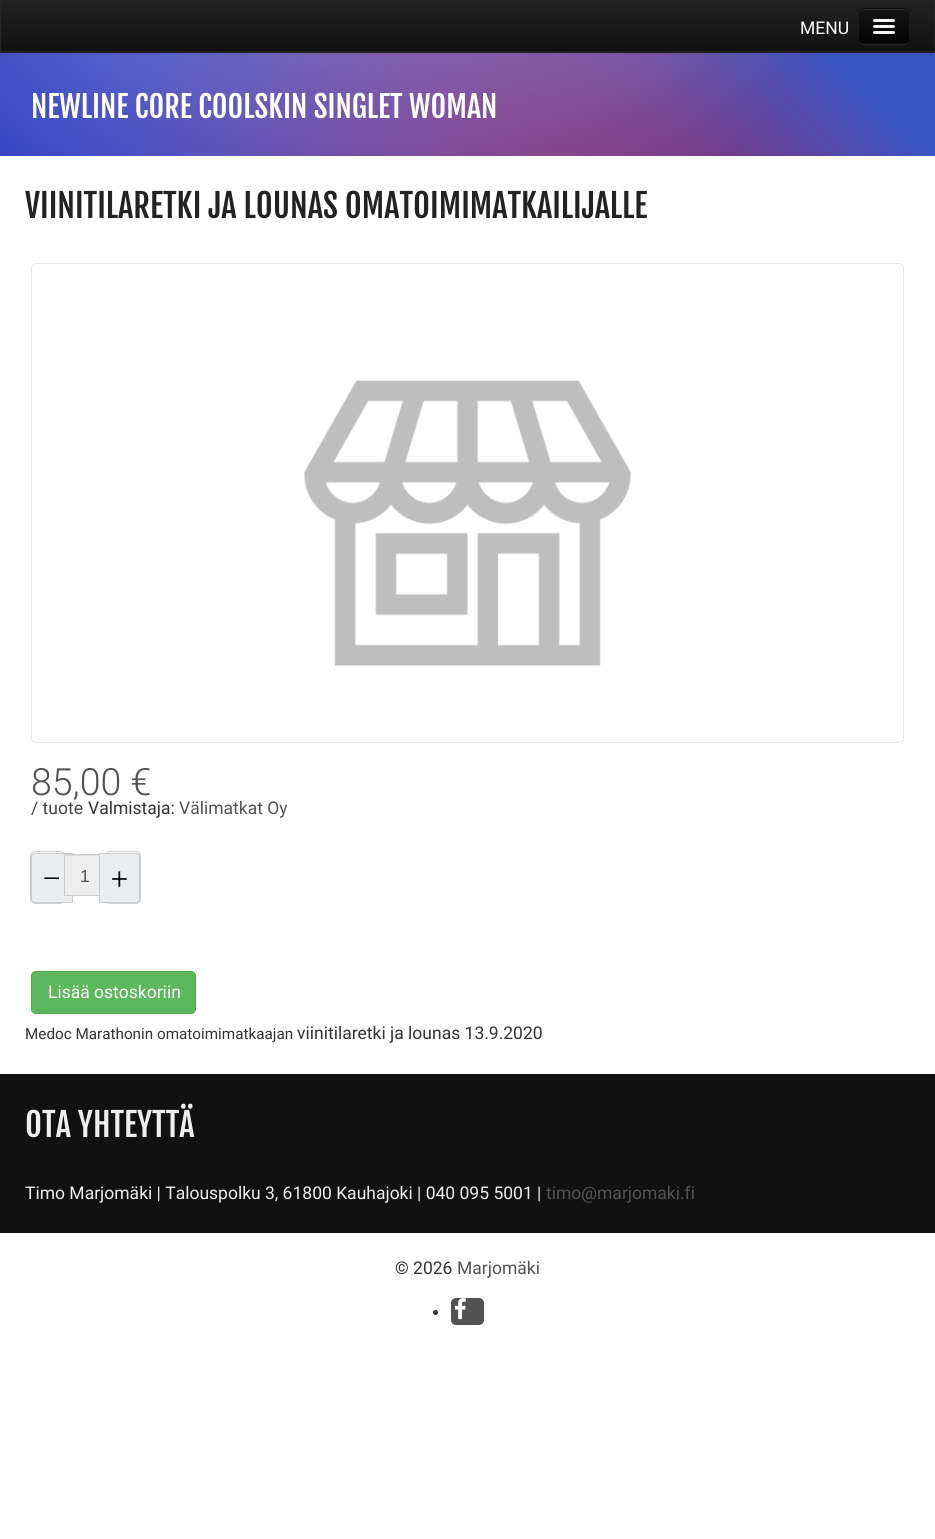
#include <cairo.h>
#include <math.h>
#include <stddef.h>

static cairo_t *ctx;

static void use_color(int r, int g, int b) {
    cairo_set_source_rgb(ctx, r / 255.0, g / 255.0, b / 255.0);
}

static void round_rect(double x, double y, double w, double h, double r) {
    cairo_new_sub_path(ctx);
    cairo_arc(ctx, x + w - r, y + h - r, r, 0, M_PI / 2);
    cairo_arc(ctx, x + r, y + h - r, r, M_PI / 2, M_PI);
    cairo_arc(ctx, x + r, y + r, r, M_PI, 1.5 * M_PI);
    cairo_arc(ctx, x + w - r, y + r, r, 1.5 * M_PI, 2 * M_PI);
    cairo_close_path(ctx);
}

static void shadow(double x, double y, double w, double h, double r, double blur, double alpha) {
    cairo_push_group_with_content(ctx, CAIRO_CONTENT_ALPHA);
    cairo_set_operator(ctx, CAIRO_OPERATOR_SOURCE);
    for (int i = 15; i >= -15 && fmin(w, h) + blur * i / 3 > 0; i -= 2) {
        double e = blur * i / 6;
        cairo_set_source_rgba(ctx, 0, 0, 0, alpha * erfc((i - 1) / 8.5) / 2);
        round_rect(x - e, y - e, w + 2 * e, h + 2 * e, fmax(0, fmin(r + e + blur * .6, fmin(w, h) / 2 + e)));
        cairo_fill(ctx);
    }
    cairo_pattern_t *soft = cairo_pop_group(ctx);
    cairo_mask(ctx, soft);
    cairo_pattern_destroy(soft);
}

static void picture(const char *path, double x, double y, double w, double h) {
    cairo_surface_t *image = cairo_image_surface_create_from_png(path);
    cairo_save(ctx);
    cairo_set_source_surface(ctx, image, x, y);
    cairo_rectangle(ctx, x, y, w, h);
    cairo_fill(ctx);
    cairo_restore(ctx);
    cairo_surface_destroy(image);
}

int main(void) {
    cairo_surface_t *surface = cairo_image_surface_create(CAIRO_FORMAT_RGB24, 935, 1539);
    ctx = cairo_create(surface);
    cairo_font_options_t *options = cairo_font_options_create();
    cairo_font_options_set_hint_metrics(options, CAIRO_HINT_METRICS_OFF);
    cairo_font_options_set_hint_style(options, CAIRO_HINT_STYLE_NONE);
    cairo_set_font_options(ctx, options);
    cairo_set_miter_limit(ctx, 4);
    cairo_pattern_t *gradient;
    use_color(255, 255, 255);
    cairo_paint(ctx);
    gradient = cairo_pattern_create_linear(727, -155, 208, 364);
    cairo_pattern_add_color_stop_rgba(gradient, 0.1, 0.22, 0.329, 0.761, 1);
    cairo_pattern_add_color_stop_rgba(gradient, 0.8, 1, 0, 0.016, 1);
    cairo_set_source(ctx, gradient);
    cairo_pattern_destroy(gradient);
    cairo_rectangle(ctx, 6, 53, 929, 103);
    cairo_fill(ctx);
    gradient = cairo_pattern_create_linear(208, -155, 727, 364);
    cairo_pattern_add_color_stop_rgba(gradient, 0.1, 0.58, 0.627, 0.878, 1);
    cairo_pattern_add_color_stop_rgba(gradient, 0.8, 0.58, 0.627, 0.878, 0);
    cairo_set_source(ctx, gradient);
    cairo_pattern_destroy(gradient);
    cairo_rectangle(ctx, 0, 53, 808, 103);
    cairo_fill(ctx);
    gradient = cairo_pattern_create_linear(208, 364, 727, -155);
    cairo_pattern_add_color_stop_rgba(gradient, 0, 0.216, 0.271, 0.765, 1);
    cairo_pattern_add_color_stop_rgba(gradient, 0.7, 0.216, 0.271, 0.765, 0);
    cairo_set_source(ctx, gradient);
    cairo_pattern_destroy(gradient);
    cairo_rectangle(ctx, 0, 53, 699, 103);
    cairo_fill(ctx);
    use_color(0, 0, 0);
    shadow(0, 1, 935, 53, 0, 2.5, 0.07);
    use_color(27, 27, 27);
    cairo_rectangle(ctx, 1, 51, 933, 1);
    cairo_fill(ctx);
    gradient = cairo_pattern_create_linear(468, 1.2, 468, 51);
    cairo_pattern_add_color_stop_rgba(gradient, 0, 0.133, 0.133, 0.133, 1);
    cairo_pattern_add_color_stop_rgba(gradient, 1, 0.067, 0.067, 0.067, 1);
    cairo_set_source(ctx, gradient);
    cairo_pattern_destroy(gradient);
    cairo_rectangle(ctx, 1, 1, 933, 50);
    cairo_fill(ctx);
    cairo_rectangle(ctx, 0.5, 0.5, 934, 52);
    use_color(37, 37, 37);
    cairo_set_line_width(ctx, 1);
    cairo_stroke(ctx);
    cairo_new_path(ctx);
    cairo_move_to(ctx, 859, 40);
    cairo_curve_to(ctx, 859, 43, 861, 45, 864, 45);
    cairo_line_to(ctx, 891, 45);
    cairo_curve_to(ctx, 908, 45, 909, 48, 909, 31);
    cairo_line_to(ctx, 909, 12);
    cairo_line_to(ctx, 909, 39);
    cairo_curve_to(ctx, 909, 42, 907, 44, 904, 44);
    cairo_line_to(ctx, 864, 44);
    cairo_curve_to(ctx, 862, 44, 860, 42, 859, 40);
    cairo_close_path(ctx);
    cairo_fill(ctx);
    use_color(14, 14, 14);
    round_rect(859, 8, 50, 36, 5);
    cairo_fill(ctx);
    cairo_save(ctx);
    round_rect(859, 8, 50, 36, 5);
    cairo_clip(ctx);
    gradient = cairo_pattern_create_linear(884, 9, 884, 43);
    cairo_pattern_add_color_stop_rgba(gradient, 0, 0.082, 0.082, 0.082, 1);
    cairo_pattern_add_color_stop_rgba(gradient, 1, 0.016, 0.016, 0.016, 1);
    cairo_set_source(ctx, gradient);
    cairo_pattern_destroy(gradient);
    cairo_rectangle(ctx, 859, 9, 50, 34);
    cairo_fill(ctx);
    cairo_restore(ctx);
    use_color(44, 44, 44);
    cairo_new_path(ctx);
    cairo_move_to(ctx, 864, 10);
    cairo_line_to(ctx, 904, 10);
    cairo_curve_to(ctx, 906, 10, 908, 12, 908, 14);
    cairo_curve_to(ctx, 908, 8, 902, 9, 897, 9);
    cairo_line_to(ctx, 871, 9);
    cairo_curve_to(ctx, 866, 9, 860, 8, 860, 14);
    cairo_curve_to(ctx, 860, 12, 862, 10, 864, 10);
    cairo_close_path(ctx);
    cairo_fill(ctx);
    cairo_select_font_face(ctx, "Roboto", CAIRO_FONT_SLANT_NORMAL, CAIRO_FONT_WEIGHT_NORMAL);
    cairo_set_font_size(ctx, 17.5);
    use_color(255, 255, 255);
    cairo_move_to(ctx, 800, 34);
    cairo_show_text(ctx, "MENU");
    use_color(11, 11, 11);
    cairo_new_path(ctx);
    cairo_move_to(ctx, 873, 21);
    cairo_curve_to(ctx, 872.5, 23.5, 877, 23, 877.5, 23);
    cairo_line_to(ctx, 890.5, 23);
    cairo_curve_to(ctx, 891, 23, 896.5, 23.5, 895, 20.5);
    cairo_line_to(ctx, 894, 21);
    cairo_close_path(ctx);
    cairo_fill(ctx);
    use_color(245, 245, 245);
    round_rect(873, 19, 22, 3, 1.5);
    cairo_fill(ctx);
    use_color(8, 8, 8);
    cairo_new_path(ctx);
    cairo_move_to(ctx, 873, 27.5);
    cairo_curve_to(ctx, 872.5, 29.5, 876.5, 29, 877.5, 29);
    cairo_line_to(ctx, 890.5, 29);
    cairo_curve_to(ctx, 891, 29, 896, 29.5, 895, 27);
    cairo_line_to(ctx, 894, 27.5);
    cairo_curve_to(ctx, 892, 27.5, 873.5, 27.5, 873, 27.5);
    cairo_close_path(ctx);
    cairo_fill(ctx);
    use_color(245, 245, 245);
    round_rect(873, 25, 22, 3, 1.5);
    cairo_fill(ctx);
    round_rect(873, 31, 22, 3, 1.5);
    cairo_fill(ctx);
    cairo_select_font_face(ctx, "Fjalla One", CAIRO_FONT_SLANT_NORMAL, CAIRO_FONT_WEIGHT_NORMAL);
    cairo_set_font_size(ctx, 30);
    use_color(255, 255, 255);
    cairo_move_to(ctx, 31, 118);
    cairo_show_text(ctx, "NEWLINE CORE COOLSKIN SINGLET WOMAN");
    cairo_set_font_size(ctx, 32.5);
    use_color(34, 34, 34);
    cairo_move_to(ctx, 25, 218);
    cairo_show_text(ctx, "VIINITILARETKI JA LOUNAS OMATOIMIMATKAILIJALLE");
    round_rect(31.5, 263.5, 872, 479, 4.5);
    use_color(231, 231, 231);
    cairo_stroke(ctx);
    picture("img1.png", 33, 264, 869, 403);
    cairo_select_font_face(ctx, "Roboto Light", CAIRO_FONT_SLANT_NORMAL, CAIRO_FONT_WEIGHT_NORMAL);
    cairo_set_font_size(ctx, 37.5);
    use_color(82, 82, 82);
    cairo_move_to(ctx, 31, 795);
    cairo_show_text(ctx, "85,00 €");
    cairo_select_font_face(ctx, "Roboto", CAIRO_FONT_SLANT_NORMAL, CAIRO_FONT_WEIGHT_NORMAL);
    cairo_set_font_size(ctx, 17.5);
    use_color(68, 68, 68);
    cairo_move_to(ctx, 31, 814);
    cairo_show_text(ctx, "/ tuote");
    use_color(51, 51, 51);
    cairo_move_to(ctx, 88, 814);
    cairo_show_text(ctx, "Valmistaja:");
    use_color(82, 82, 82);
    cairo_move_to(ctx, 179, 814);
    cairo_show_text(ctx, "Välimatkat Oy");
    round_rect(30.5, 851.5, 34, 52, 4.5);
    use_color(204, 204, 204);
    cairo_stroke(ctx);
    use_color(234, 237, 240);
    cairo_new_path(ctx);
    cairo_move_to(ctx, 35, 853.5);
    cairo_line_to(ctx, 72.5, 853.5);
    cairo_line_to(ctx, 72.5, 902.5);
    cairo_line_to(ctx, 35, 902.5);
    cairo_curve_to(ctx, 33, 902.5, 31.5, 901, 31.5, 899);
    cairo_line_to(ctx, 31.5, 857);
    cairo_curve_to(ctx, 31.5, 855, 33, 853.5, 35, 853.5);
    cairo_close_path(ctx);
    cairo_fill_preserve(ctx);
    use_color(204, 204, 204);
    cairo_stroke(ctx);
    cairo_select_font_face(ctx, "Roboto Light", CAIRO_FONT_SLANT_NORMAL, CAIRO_FONT_WEIGHT_NORMAL);
    cairo_set_font_size(ctx, 30);
    use_color(0, 0, 0);
    cairo_move_to(ctx, 42, 889);
    cairo_show_text(ctx, "–");
    use_color(238, 238, 238);
    cairo_rectangle(ctx, 65, 856, 34, 39);
    cairo_fill(ctx);
    use_color(220, 220, 220);
    cairo_rectangle(ctx, 65, 855, 40, 1);
    cairo_fill(ctx);
    cairo_rectangle(ctx, 64.5, 854.5, 41, 41);
    use_color(204, 204, 204);
    cairo_stroke(ctx);
    cairo_select_font_face(ctx, "Liberation Sans", CAIRO_FONT_SLANT_NORMAL, CAIRO_FONT_WEIGHT_NORMAL);
    cairo_set_font_size(ctx, 17.5);
    use_color(82, 82, 82);
    cairo_move_to(ctx, 80, 882);
    cairo_show_text(ctx, "1");
    round_rect(105.5, 851.5, 35, 52, 4.5);
    use_color(204, 204, 204);
    cairo_stroke(ctx);
    use_color(234, 237, 240);
    cairo_new_path(ctx);
    cairo_move_to(ctx, 99.5, 853.5);
    cairo_line_to(ctx, 136, 853.5);
    cairo_curve_to(ctx, 138, 853.5, 139.5, 855, 139.5, 857);
    cairo_line_to(ctx, 139.5, 899);
    cairo_curve_to(ctx, 139.5, 901, 138, 902.5, 136, 902.5);
    cairo_line_to(ctx, 99.5, 902.5);
    cairo_close_path(ctx);
    cairo_fill_preserve(ctx);
    use_color(204, 204, 204);
    cairo_stroke(ctx);
    cairo_select_font_face(ctx, "Roboto Light", CAIRO_FONT_SLANT_NORMAL, CAIRO_FONT_WEIGHT_NORMAL);
    cairo_set_font_size(ctx, 30);
    use_color(0, 0, 0);
    cairo_move_to(ctx, 111, 889);
    cairo_show_text(ctx, "+");
    use_color(92, 184, 92);
    round_rect(31.5, 971.5, 164, 42, 4.5);
    cairo_fill_preserve(ctx);
    use_color(76, 174, 76);
    cairo_stroke(ctx);
    cairo_select_font_face(ctx, "Roboto", CAIRO_FONT_SLANT_NORMAL, CAIRO_FONT_WEIGHT_NORMAL);
    cairo_set_font_size(ctx, 17.5);
    use_color(255, 255, 255);
    cairo_move_to(ctx, 48, 998);
    cairo_show_text(ctx, "Lisää ostoskoriin");
    cairo_set_font_size(ctx, 15.25);
    use_color(51, 51, 51);
    cairo_move_to(ctx, 25, 1039);
    cairo_show_text(ctx, "Medoc Marathonin omatoimimatkaajan");
    cairo_set_font_size(ctx, 17.5);
    cairo_move_to(ctx, 297, 1039);
    cairo_show_text(ctx, "viinitilaretki ja lounas 13.9.2020");
    use_color(17, 17, 17);
    cairo_rectangle(ctx, 0, 1074, 935, 159);
    cairo_fill(ctx);
    cairo_select_font_face(ctx, "Fjalla One", CAIRO_FONT_SLANT_NORMAL, CAIRO_FONT_WEIGHT_NORMAL);
    cairo_set_font_size(ctx, 32.5);
    use_color(238, 238, 238);
    cairo_move_to(ctx, 25, 1137);
    cairo_show_text(ctx, "OTA YHTEYTTÄ");
    cairo_select_font_face(ctx, "Roboto", CAIRO_FONT_SLANT_NORMAL, CAIRO_FONT_WEIGHT_NORMAL);
    cairo_set_font_size(ctx, 17.5);
    cairo_move_to(ctx, 25, 1199);
    cairo_show_text(ctx, "Timo Marjomäki | Talouspolku 3, 61800 Kauhajoki | 040 095 5001 |");
    use_color(82, 82, 82);
    cairo_move_to(ctx, 546, 1199);
    cairo_show_text(ctx, "timo@marjomaki.fi");
    use_color(51, 51, 51);
    cairo_move_to(ctx, 395, 1274);
    cairo_show_text(ctx, "© 2026");
    use_color(82, 82, 82);
    cairo_move_to(ctx, 457, 1274);
    cairo_show_text(ctx, "Marjomäki");
    use_color(51, 51, 51);
    cairo_new_path(ctx);
    cairo_arc(ctx, 435.5, 1312.5, 2.5, 0, 2 * M_PI);
    cairo_fill(ctx);
    use_color(82, 82, 82);
    round_rect(451, 1298, 33, 27, 5);
    cairo_fill(ctx);
    picture("img2.png", 454, 1298, 12, 22);
    cairo_surface_write_to_png(surface, "result.png");
    cairo_font_options_destroy(options);
    cairo_destroy(ctx);
    cairo_surface_destroy(surface);
    return 0;
}
